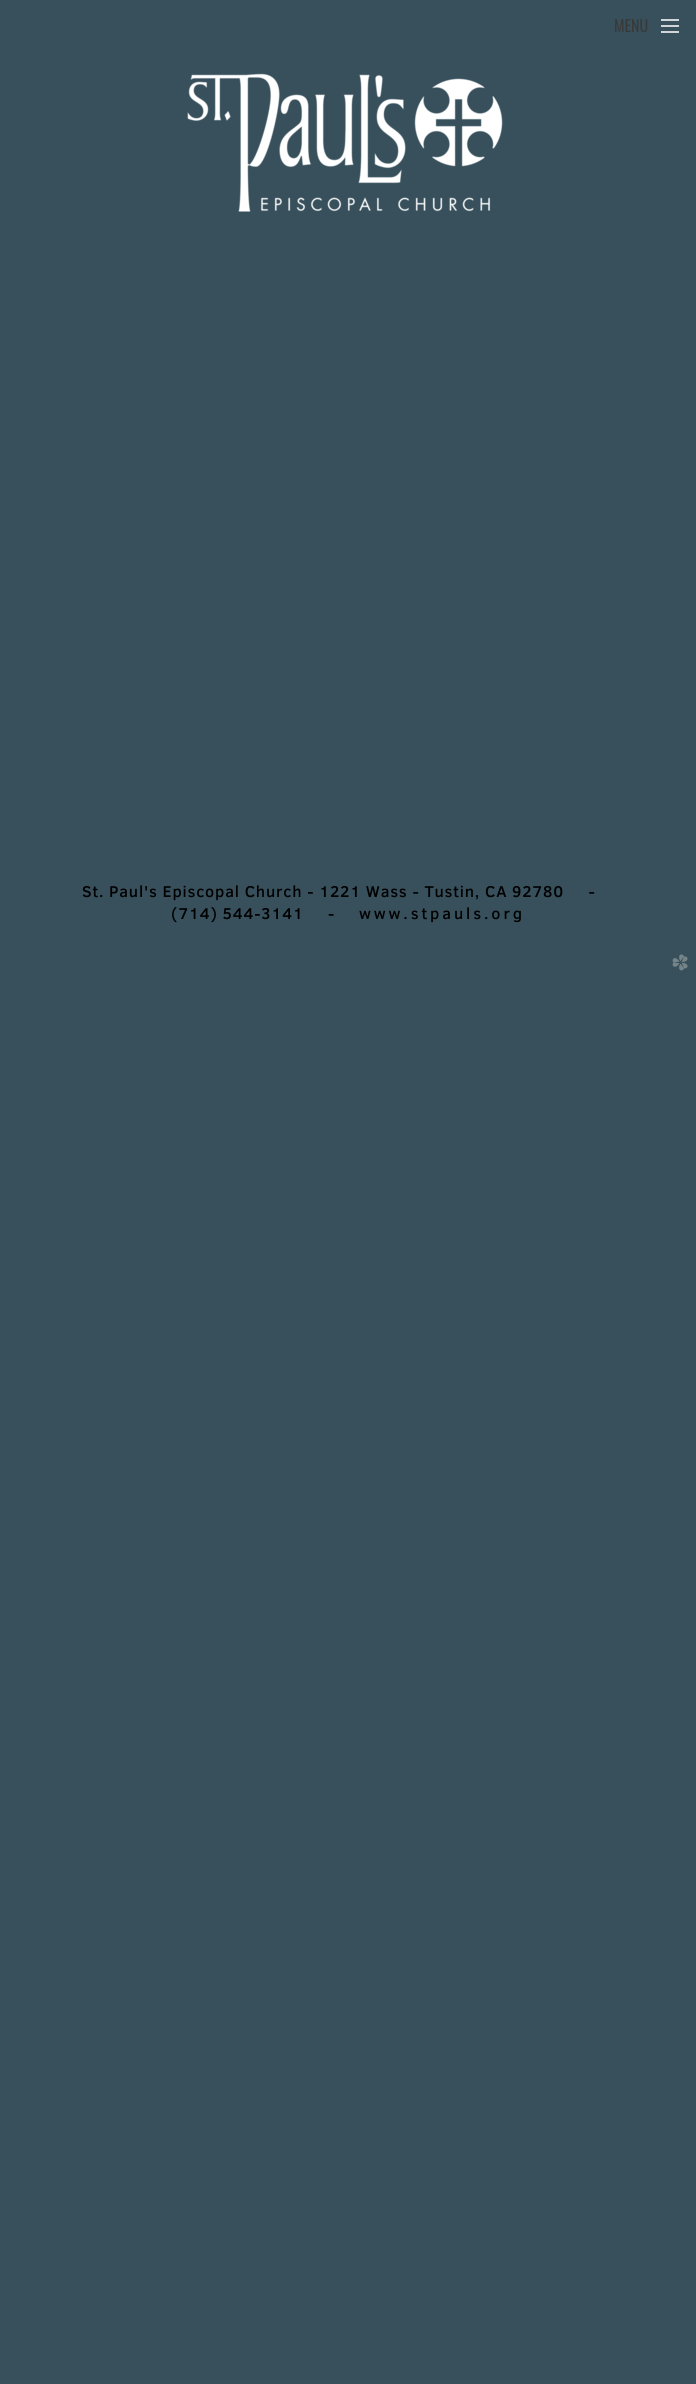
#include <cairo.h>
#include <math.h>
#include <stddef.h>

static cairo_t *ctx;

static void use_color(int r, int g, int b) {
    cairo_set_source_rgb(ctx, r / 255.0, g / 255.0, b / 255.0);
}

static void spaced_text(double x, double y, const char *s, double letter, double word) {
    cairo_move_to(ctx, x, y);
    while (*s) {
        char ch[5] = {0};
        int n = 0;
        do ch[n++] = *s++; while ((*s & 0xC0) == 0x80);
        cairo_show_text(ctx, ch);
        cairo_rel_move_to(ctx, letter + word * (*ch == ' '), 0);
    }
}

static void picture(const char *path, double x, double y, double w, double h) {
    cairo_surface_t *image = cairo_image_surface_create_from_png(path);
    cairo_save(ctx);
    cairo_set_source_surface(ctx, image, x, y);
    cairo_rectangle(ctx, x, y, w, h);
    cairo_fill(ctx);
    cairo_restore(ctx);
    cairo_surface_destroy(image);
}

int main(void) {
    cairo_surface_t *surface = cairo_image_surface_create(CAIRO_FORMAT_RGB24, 696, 2384);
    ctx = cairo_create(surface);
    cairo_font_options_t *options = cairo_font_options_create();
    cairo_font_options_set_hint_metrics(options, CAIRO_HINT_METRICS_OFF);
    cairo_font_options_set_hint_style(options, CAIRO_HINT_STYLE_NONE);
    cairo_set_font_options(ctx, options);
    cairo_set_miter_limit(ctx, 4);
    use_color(55, 80, 92);
    cairo_paint(ctx);
    cairo_select_font_face(ctx, "Oswald", CAIRO_FONT_SLANT_NORMAL, CAIRO_FONT_WEIGHT_NORMAL);
    cairo_set_font_size(ctx, 16);
    use_color(57, 57, 57);
    cairo_move_to(ctx, 614, 32);
    cairo_show_text(ctx, "MENU");
    use_color(207, 213, 216);
    cairo_rectangle(ctx, 661, 19, 18, 2);
    cairo_fill(ctx);
    cairo_rectangle(ctx, 661, 25, 18, 2);
    cairo_fill(ctx);
    cairo_rectangle(ctx, 661, 31, 18, 2);
    cairo_fill(ctx);
    picture("img1.png", 187, 73, 316, 139);
    cairo_select_font_face(ctx, "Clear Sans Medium", CAIRO_FONT_SLANT_NORMAL, CAIRO_FONT_WEIGHT_NORMAL);
    use_color(0, 0, 0);
    spaced_text(82, 897, "St. Paul's Episcopal Church - 1221 Wass - Tustin, CA 92780     -", 0.8, 0);
    spaced_text(171, 919, "(714) 544-3141     -", 0.8, 0);
    spaced_text(359, 919, "www.stpauls.org", 2.9, 0);
    picture("img2.png", 672, 954, 16, 17);
    cairo_surface_write_to_png(surface, "result.png");
    cairo_font_options_destroy(options);
    cairo_destroy(ctx);
    cairo_surface_destroy(surface);
    return 0;
}
